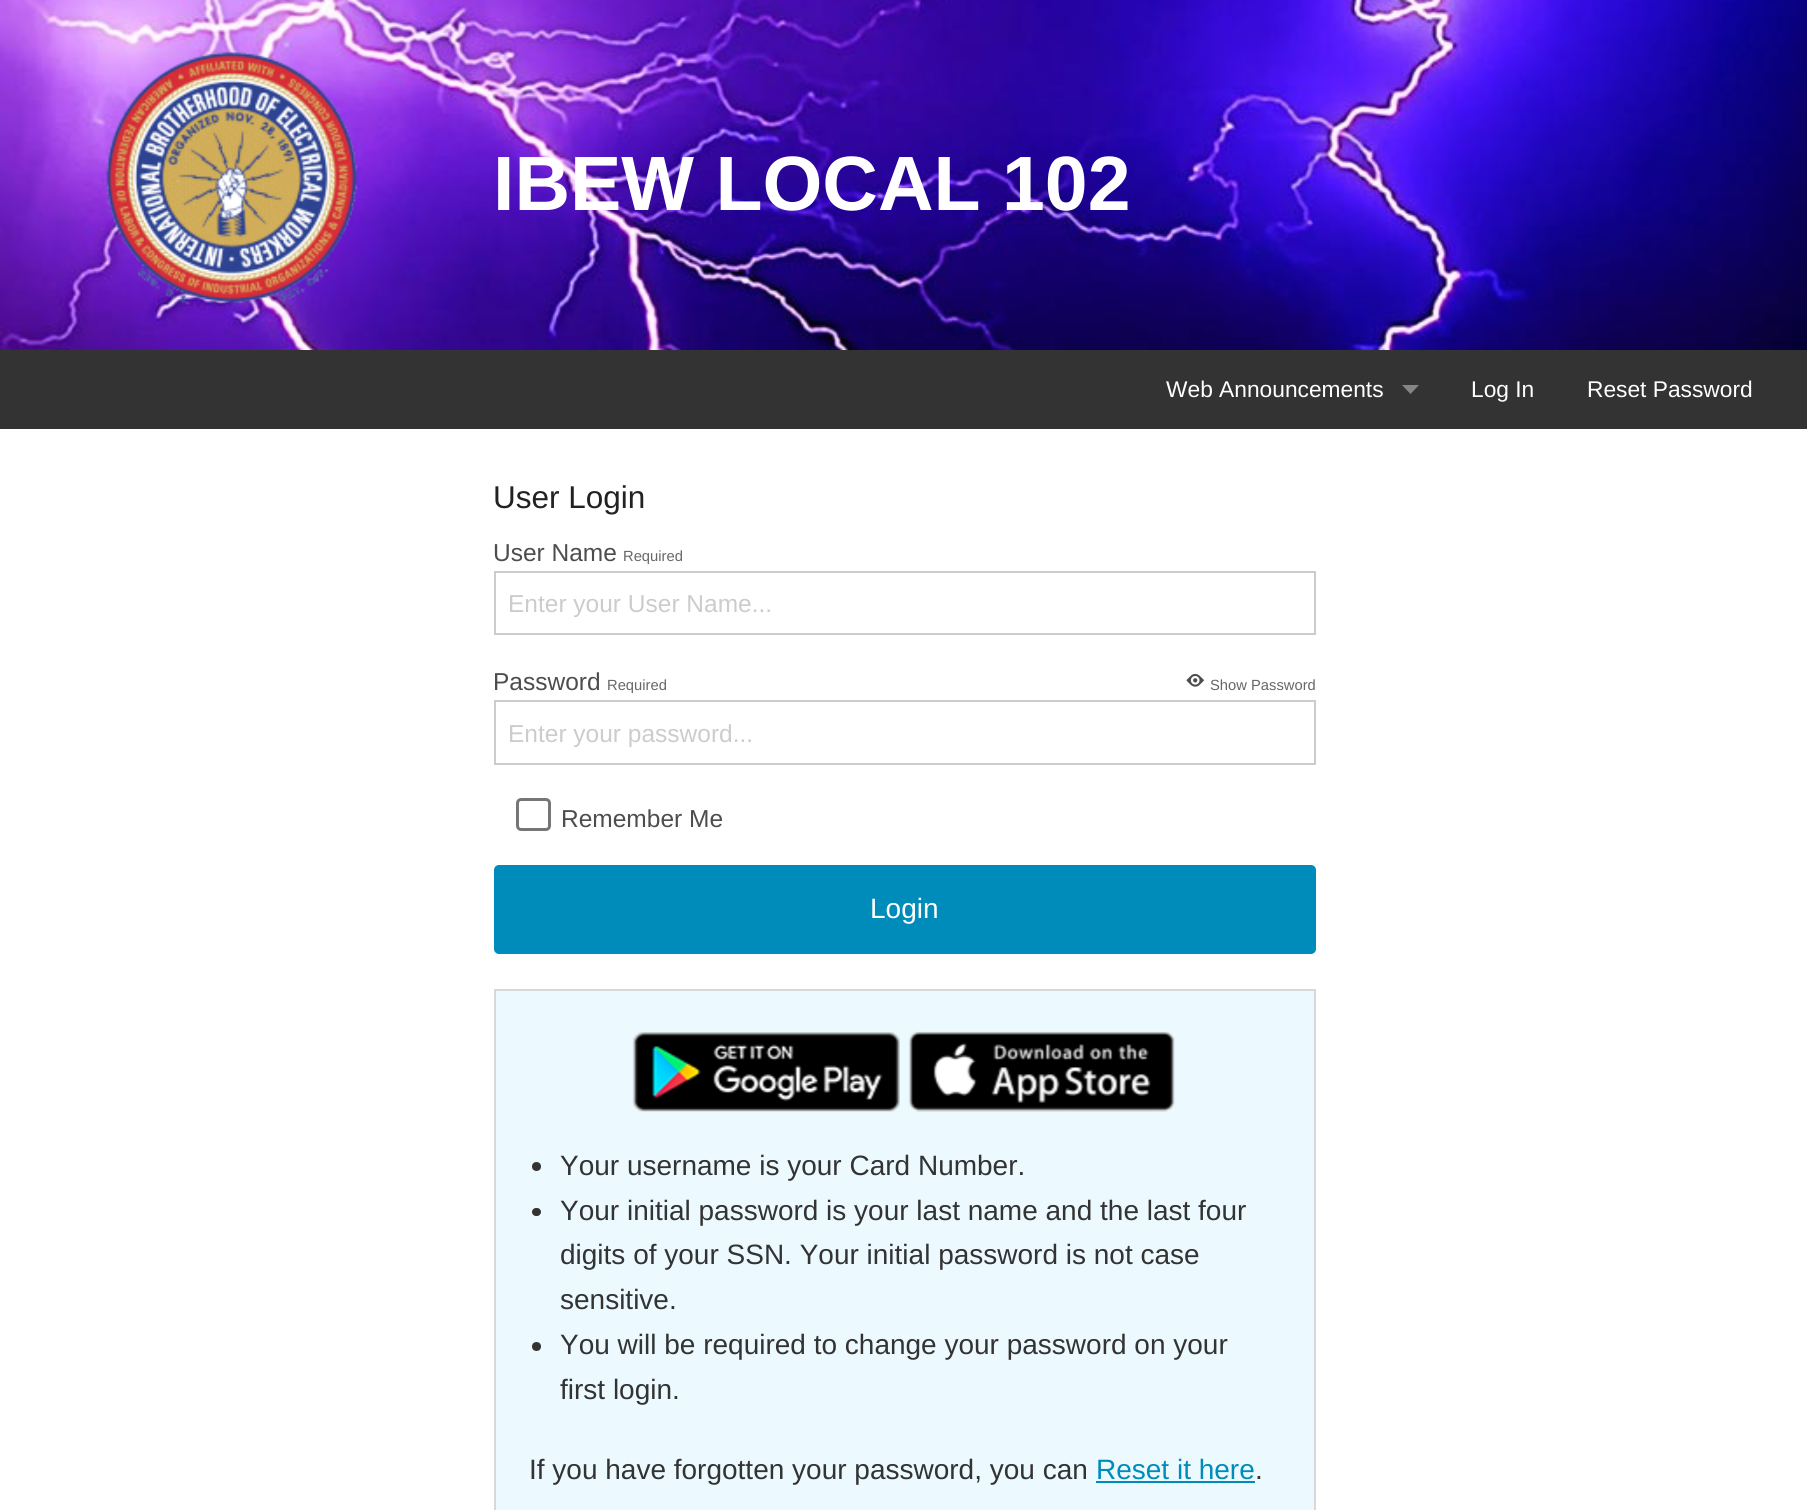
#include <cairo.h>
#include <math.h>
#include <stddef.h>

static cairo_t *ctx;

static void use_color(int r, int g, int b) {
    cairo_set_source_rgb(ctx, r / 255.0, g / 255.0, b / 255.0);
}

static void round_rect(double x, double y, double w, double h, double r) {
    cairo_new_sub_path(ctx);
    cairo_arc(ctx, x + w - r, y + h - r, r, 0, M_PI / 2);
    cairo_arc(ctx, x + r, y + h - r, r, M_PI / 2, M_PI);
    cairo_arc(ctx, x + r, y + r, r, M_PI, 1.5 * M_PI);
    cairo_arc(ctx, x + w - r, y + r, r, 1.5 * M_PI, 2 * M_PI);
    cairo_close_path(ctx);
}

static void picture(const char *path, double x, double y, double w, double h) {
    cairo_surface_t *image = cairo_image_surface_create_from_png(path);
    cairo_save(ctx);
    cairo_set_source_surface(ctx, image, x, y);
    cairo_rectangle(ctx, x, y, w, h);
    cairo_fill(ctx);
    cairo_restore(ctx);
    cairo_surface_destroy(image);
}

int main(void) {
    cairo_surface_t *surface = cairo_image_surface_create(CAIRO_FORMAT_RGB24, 1807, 1510);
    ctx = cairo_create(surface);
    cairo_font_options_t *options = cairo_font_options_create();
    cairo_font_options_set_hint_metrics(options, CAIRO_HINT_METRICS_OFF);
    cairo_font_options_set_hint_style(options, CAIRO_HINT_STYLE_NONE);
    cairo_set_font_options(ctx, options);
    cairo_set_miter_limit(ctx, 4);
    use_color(255, 255, 255);
    cairo_paint(ctx);
    picture("img1.png", 0, 0, 1807, 350);
    picture("img2.png", 105, 52, 253, 253);
    cairo_select_font_face(ctx, "Liberation Sans", CAIRO_FONT_SLANT_NORMAL, CAIRO_FONT_WEIGHT_BOLD);
    cairo_set_font_size(ctx, 77);
    use_color(255, 255, 255);
    cairo_move_to(ctx, 493, 210);
    cairo_show_text(ctx, "IBEW LOCAL 102");
    use_color(51, 51, 51);
    cairo_rectangle(ctx, 0, 350, 1807, 79);
    cairo_fill(ctx);
    cairo_select_font_face(ctx, "Liberation Sans", CAIRO_FONT_SLANT_NORMAL, CAIRO_FONT_WEIGHT_NORMAL);
    cairo_set_font_size(ctx, 22.75);
    use_color(255, 255, 255);
    cairo_move_to(ctx, 1166, 397);
    cairo_show_text(ctx, "Web Announcements");
    use_color(133, 133, 133);
    cairo_new_path(ctx);
    cairo_move_to(ctx, 1402, 385);
    cairo_line_to(ctx, 1419, 385);
    cairo_line_to(ctx, 1410.5, 394);
    cairo_close_path(ctx);
    cairo_fill(ctx);
    use_color(255, 255, 255);
    cairo_move_to(ctx, 1471, 397);
    cairo_show_text(ctx, "Log In");
    cairo_move_to(ctx, 1587, 397);
    cairo_show_text(ctx, "Reset Password");
    cairo_set_font_size(ctx, 31.5);
    use_color(34, 34, 34);
    cairo_move_to(ctx, 493, 508);
    cairo_show_text(ctx, "User Login");
    cairo_set_font_size(ctx, 24.5);
    use_color(77, 77, 77);
    cairo_move_to(ctx, 493, 561);
    cairo_show_text(ctx, "User Name");
    cairo_set_font_size(ctx, 14.75);
    use_color(103, 103, 103);
    cairo_move_to(ctx, 623, 561);
    cairo_show_text(ctx, "Required");
    cairo_rectangle(ctx, 495, 572, 820, 62);
    use_color(204, 204, 204);
    cairo_stroke(ctx);
    cairo_set_font_size(ctx, 24.5);
    cairo_move_to(ctx, 508, 612);
    cairo_show_text(ctx, "Enter your User Name...");
    use_color(77, 77, 77);
    cairo_move_to(ctx, 493, 690);
    cairo_show_text(ctx, "Password");
    cairo_set_font_size(ctx, 14.75);
    use_color(103, 103, 103);
    cairo_move_to(ctx, 607, 690);
    cairo_show_text(ctx, "Required");
    picture("img3.png", 1186, 673, 18, 14);
    cairo_move_to(ctx, 1210, 690);
    cairo_show_text(ctx, "Show Password");
    cairo_rectangle(ctx, 495, 701, 820, 63);
    use_color(204, 204, 204);
    cairo_stroke(ctx);
    cairo_set_font_size(ctx, 24.5);
    cairo_move_to(ctx, 508, 742);
    cairo_show_text(ctx, "Enter your password...");
    round_rect(517.5, 799.5, 32, 30, 3.5);
    use_color(118, 118, 118);
    cairo_set_line_width(ctx, 3);
    cairo_stroke(ctx);
    use_color(77, 77, 77);
    cairo_move_to(ctx, 561, 827);
    cairo_show_text(ctx, "Remember Me");
    use_color(0, 140, 186);
    round_rect(494, 865, 822, 89, 5);
    cairo_fill(ctx);
    cairo_set_font_size(ctx, 28);
    use_color(255, 255, 255);
    cairo_move_to(ctx, 870, 918);
    cairo_show_text(ctx, "Login");
    use_color(236, 250, 255);
    cairo_rectangle(ctx, 495, 990, 820, 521);
    cairo_fill_preserve(ctx);
    use_color(216, 216, 216);
    cairo_set_line_width(ctx, 2);
    cairo_stroke(ctx);
    picture("img4.png", 632, 1032, 268, 80);
    picture("img5.png", 908, 1031, 267, 81);
    use_color(51, 51, 51);
    cairo_arc(ctx, 536.5, 1166.5, 4.5, 0, 2 * M_PI);
    cairo_fill(ctx);
    cairo_move_to(ctx, 560, 1175);
    cairo_show_text(ctx, "Your username is your Card Number.");
    round_rect(532, 1208, 9, 8, 4);
    cairo_fill(ctx);
    cairo_move_to(ctx, 560, 1220);
    cairo_show_text(ctx, "Your initial password is your last name and the last four");
    cairo_move_to(ctx, 560, 1264);
    cairo_show_text(ctx, "digits of your SSN. Your initial password is not case");
    cairo_move_to(ctx, 560, 1309);
    cairo_show_text(ctx, "sensitive.");
    cairo_new_path(ctx);
    cairo_arc(ctx, 536.5, 1346.5, 4.5, 0, 2 * M_PI);
    cairo_fill(ctx);
    cairo_move_to(ctx, 560, 1354);
    cairo_show_text(ctx, "You will be required to change your password on your");
    cairo_move_to(ctx, 560, 1399);
    cairo_show_text(ctx, "first login.");
    cairo_move_to(ctx, 529, 1479);
    cairo_show_text(ctx, "If you have forgotten your password, you can");
    use_color(0, 140, 186);
    cairo_move_to(ctx, 1096, 1479);
    cairo_show_text(ctx, "Reset it here");
    cairo_rectangle(ctx, 1096, 1481, 159, 2);
    cairo_fill(ctx);
    use_color(51, 51, 51);
    cairo_move_to(ctx, 1255, 1479);
    cairo_show_text(ctx, ".");
    cairo_surface_write_to_png(surface, "result.png");
    cairo_font_options_destroy(options);
    cairo_destroy(ctx);
    cairo_surface_destroy(surface);
    return 0;
}
